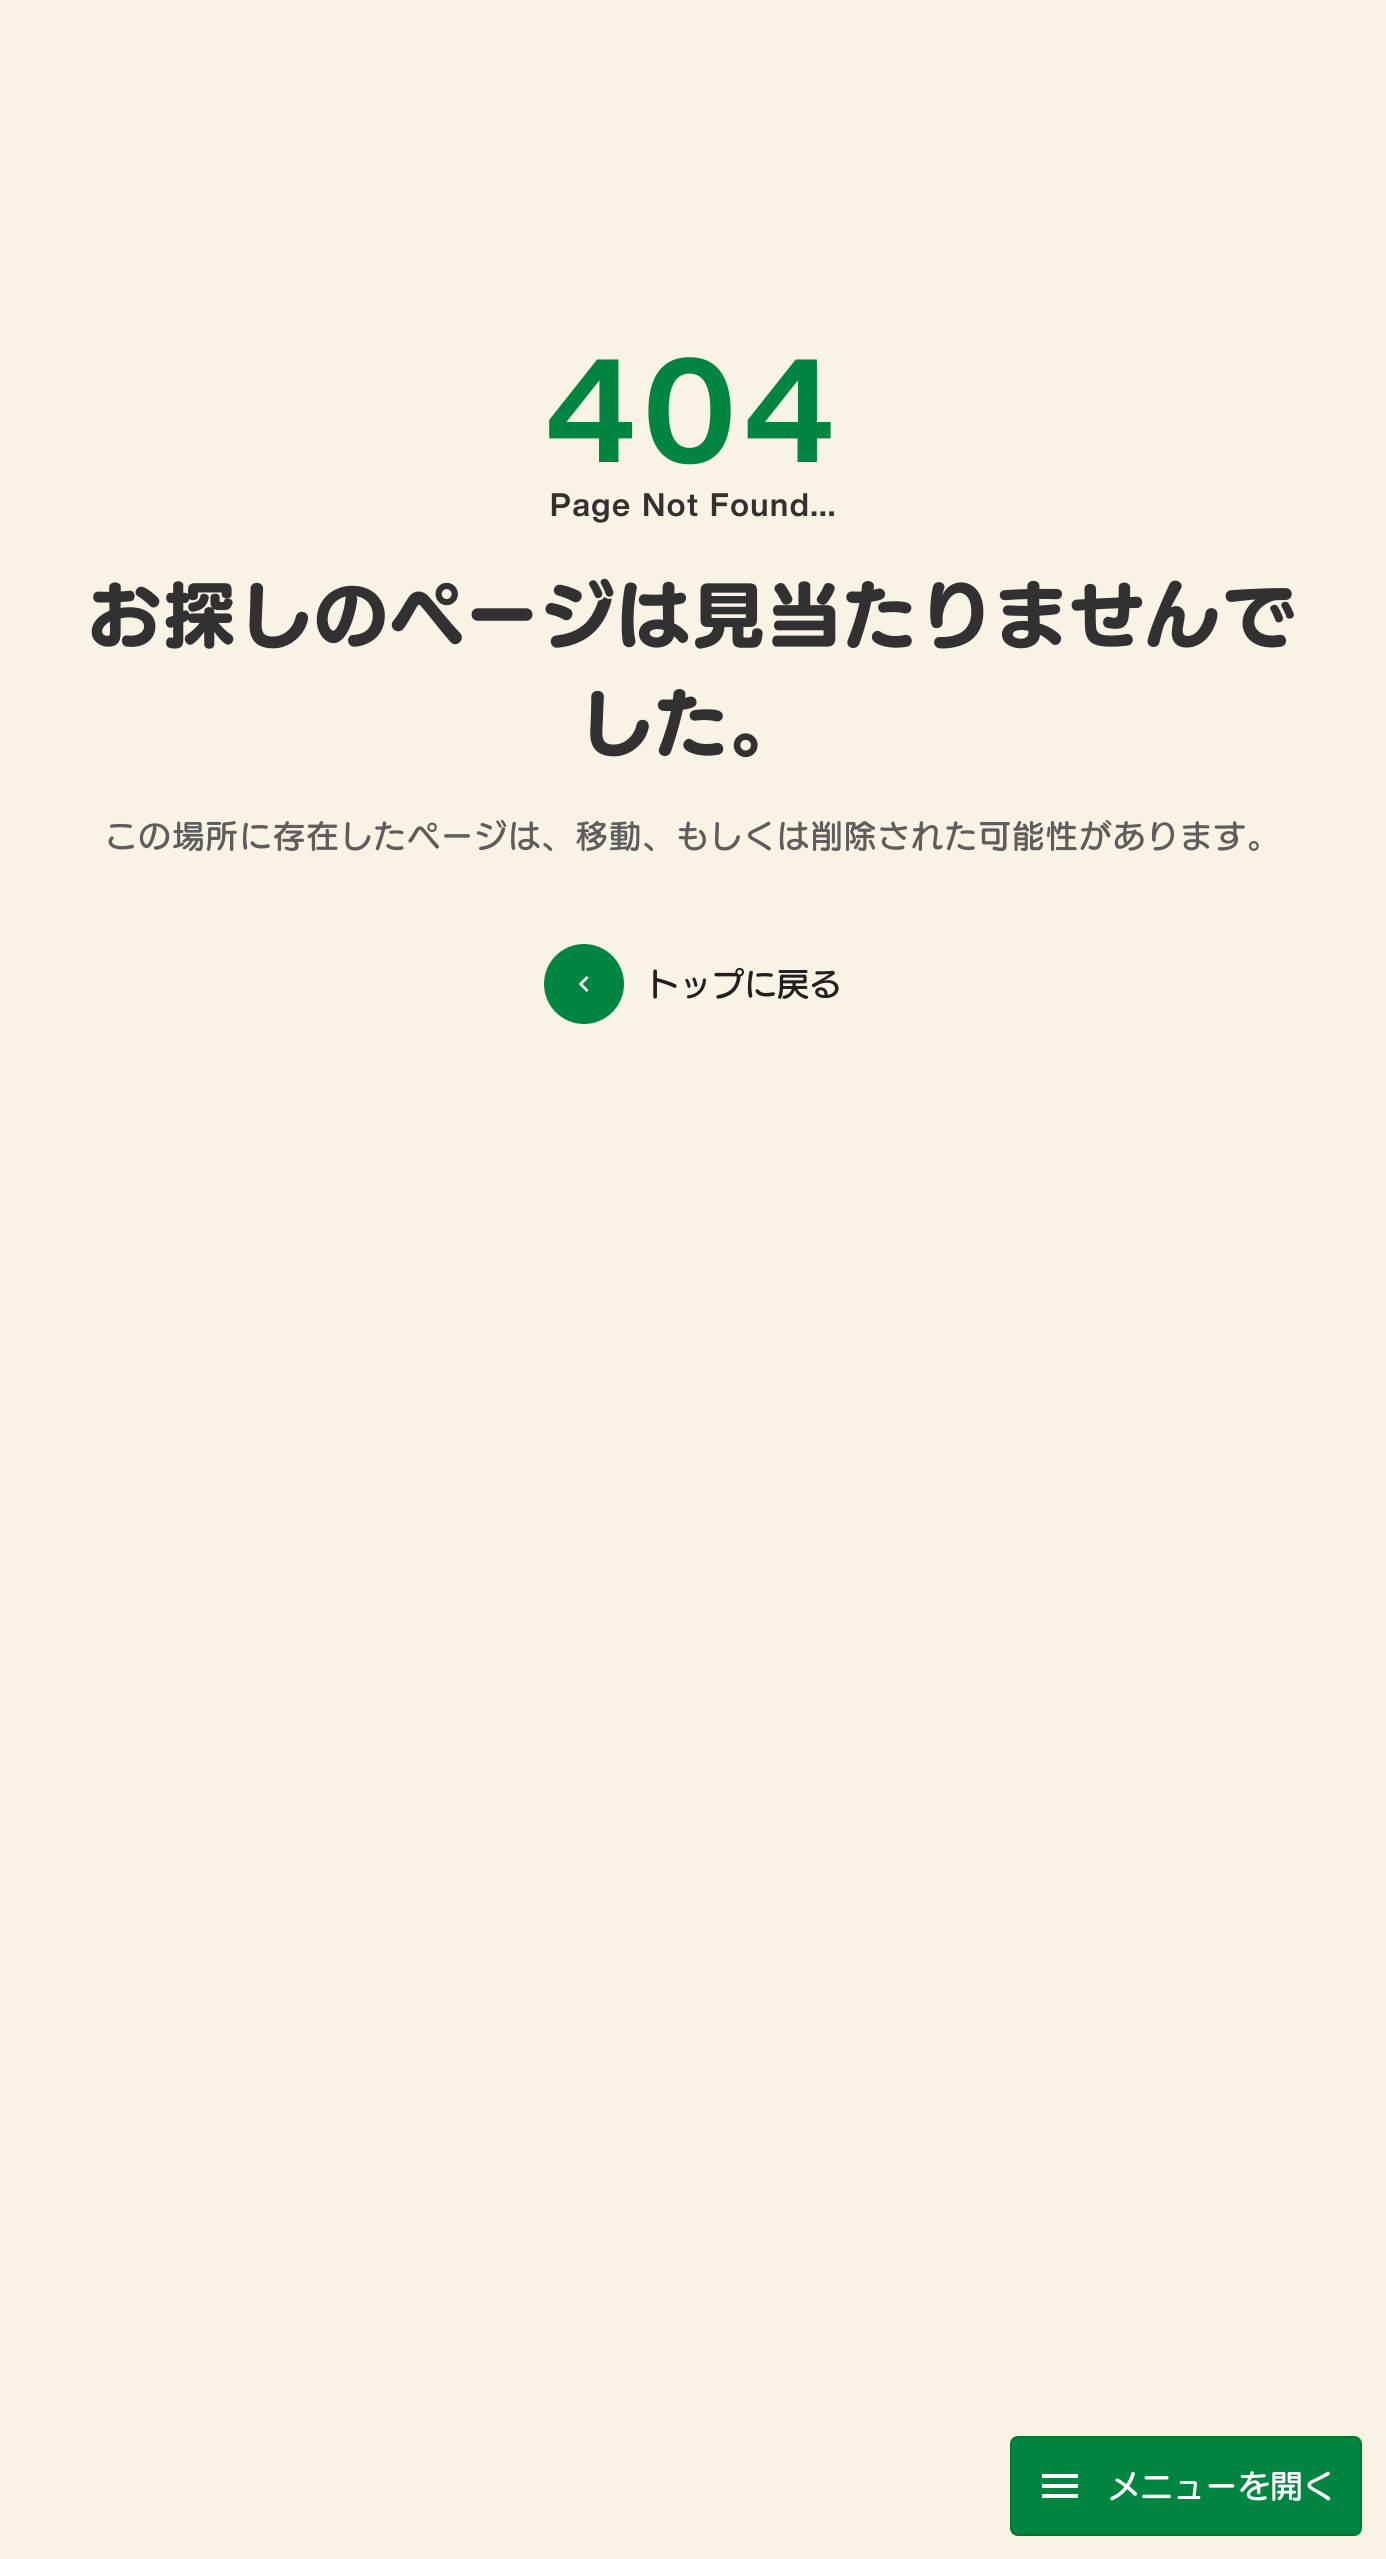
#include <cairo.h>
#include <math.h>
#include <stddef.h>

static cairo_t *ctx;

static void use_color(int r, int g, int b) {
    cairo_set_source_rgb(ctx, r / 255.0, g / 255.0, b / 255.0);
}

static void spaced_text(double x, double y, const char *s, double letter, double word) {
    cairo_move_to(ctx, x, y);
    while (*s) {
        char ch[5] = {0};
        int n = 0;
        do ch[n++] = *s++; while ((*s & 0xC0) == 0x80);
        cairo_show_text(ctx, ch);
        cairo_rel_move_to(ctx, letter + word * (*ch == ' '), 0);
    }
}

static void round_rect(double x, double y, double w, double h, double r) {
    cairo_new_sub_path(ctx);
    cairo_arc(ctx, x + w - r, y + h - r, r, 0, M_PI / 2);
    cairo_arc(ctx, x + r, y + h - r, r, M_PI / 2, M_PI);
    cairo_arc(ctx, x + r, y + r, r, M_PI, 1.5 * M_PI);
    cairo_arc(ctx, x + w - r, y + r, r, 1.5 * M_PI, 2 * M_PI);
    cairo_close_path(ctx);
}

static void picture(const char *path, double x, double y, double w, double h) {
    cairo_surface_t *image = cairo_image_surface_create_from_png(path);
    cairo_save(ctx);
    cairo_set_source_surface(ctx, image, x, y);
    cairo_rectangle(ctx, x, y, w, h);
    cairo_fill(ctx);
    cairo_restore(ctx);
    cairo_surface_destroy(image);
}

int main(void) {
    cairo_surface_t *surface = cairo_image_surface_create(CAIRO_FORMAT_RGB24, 1386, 2559);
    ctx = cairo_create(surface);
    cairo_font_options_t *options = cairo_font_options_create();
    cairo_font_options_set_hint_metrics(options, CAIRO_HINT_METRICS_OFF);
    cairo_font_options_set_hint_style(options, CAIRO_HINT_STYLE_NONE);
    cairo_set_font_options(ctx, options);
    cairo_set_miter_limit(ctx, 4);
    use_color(249, 243, 230);
    cairo_paint(ctx);
    cairo_select_font_face(ctx, "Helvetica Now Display", CAIRO_FONT_SLANT_NORMAL, CAIRO_FONT_WEIGHT_BOLD);
    cairo_set_font_size(ctx, 144);
    use_color(2, 133, 64);
    spaced_text(545, 462, "404", 7, 0);
    cairo_set_font_size(ctx, 32);
    use_color(49, 49, 49);
    spaced_text(550, 516, "Page Not Found...", 1.6, 2);
    cairo_select_font_face(ctx, "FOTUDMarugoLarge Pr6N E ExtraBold", CAIRO_FONT_SLANT_NORMAL, CAIRO_FONT_WEIGHT_NORMAL);
    cairo_set_font_size(ctx, 72);
    spaced_text(88, 642, "お探しのページは見当たりませんで", 3.6, 0);
    spaced_text(580, 750, "した。", 3.6, 0);
    cairo_select_font_face(ctx, "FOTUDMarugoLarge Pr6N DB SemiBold", CAIRO_FONT_SLANT_NORMAL, CAIRO_FONT_WEIGHT_NORMAL);
    cairo_set_font_size(ctx, 32);
    use_color(93, 93, 93);
    spaced_text(105, 848, "この場所に存在したページは、移動、もしくは削除された可能性があります。", 1.6, 0);
    use_color(2, 133, 64);
    cairo_new_path(ctx);
    cairo_arc(ctx, 584, 984, 39, 0, 2 * M_PI);
    cairo_fill_preserve(ctx);
    cairo_stroke(ctx);
    picture("img1.png", 578, 976, 11, 16);
    use_color(32, 32, 32);
    spaced_text(647, 996, "トップに戻る", 0.5, 0);
    use_color(2, 133, 64);
    round_rect(1011, 2437, 350, 98, 7);
    cairo_fill_preserve(ctx);
    use_color(0, 119, 41);
    cairo_stroke(ctx);
    use_color(255, 255, 255);
    cairo_new_path(ctx);
    cairo_move_to(ctx, 1042, 2474);
    cairo_line_to(ctx, 1078, 2474);
    cairo_line_to(ctx, 1078, 2478);
    cairo_line_to(ctx, 1042, 2478);
    cairo_close_path(ctx);
    cairo_move_to(ctx, 1042, 2488);
    cairo_line_to(ctx, 1042, 2484);
    cairo_line_to(ctx, 1078, 2484);
    cairo_line_to(ctx, 1078, 2488);
    cairo_close_path(ctx);
    cairo_move_to(ctx, 1042, 2498);
    cairo_line_to(ctx, 1042, 2494);
    cairo_line_to(ctx, 1078, 2494);
    cairo_line_to(ctx, 1078, 2498);
    cairo_close_path(ctx);
    cairo_fill(ctx);
    spaced_text(1108, 2498, "メニューを開く", 0.5, 0);
    cairo_surface_write_to_png(surface, "result.png");
    cairo_font_options_destroy(options);
    cairo_destroy(ctx);
    cairo_surface_destroy(surface);
    return 0;
}
